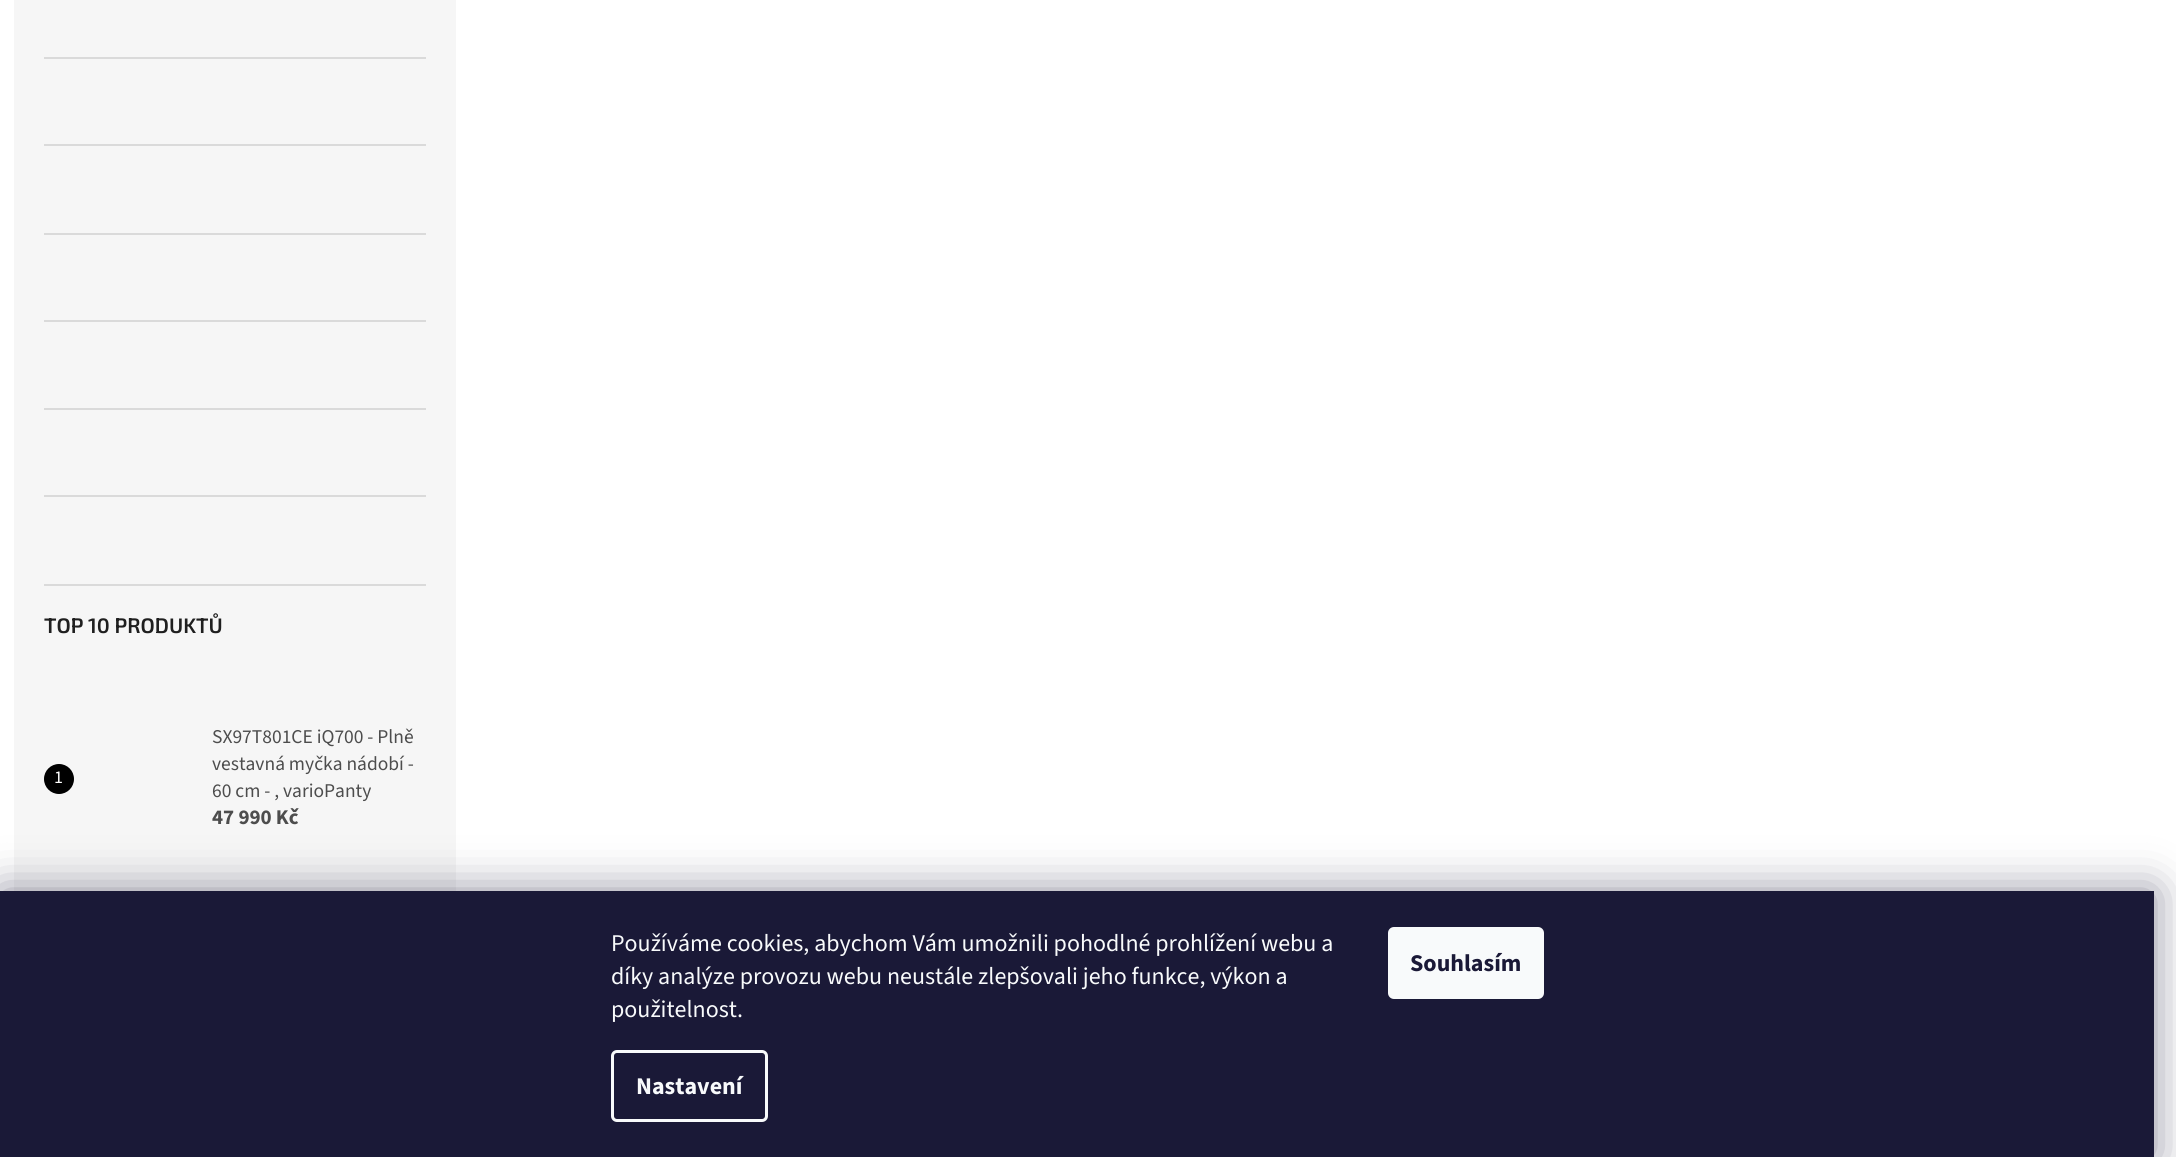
#include <cairo.h>
#include <math.h>
#include <stddef.h>

static cairo_t *ctx;

static void use_color(int r, int g, int b) {
    cairo_set_source_rgb(ctx, r / 255.0, g / 255.0, b / 255.0);
}

static void round_rect(double x, double y, double w, double h, double r) {
    cairo_new_sub_path(ctx);
    cairo_arc(ctx, x + w - r, y + h - r, r, 0, M_PI / 2);
    cairo_arc(ctx, x + r, y + h - r, r, M_PI / 2, M_PI);
    cairo_arc(ctx, x + r, y + r, r, M_PI, 1.5 * M_PI);
    cairo_arc(ctx, x + w - r, y + r, r, 1.5 * M_PI, 2 * M_PI);
    cairo_close_path(ctx);
}

static void shadow(double x, double y, double w, double h, double r, double blur, double alpha) {
    cairo_push_group_with_content(ctx, CAIRO_CONTENT_ALPHA);
    cairo_set_operator(ctx, CAIRO_OPERATOR_SOURCE);
    for (int i = 15; i >= -15 && fmin(w, h) + blur * i / 3 > 0; i -= 2) {
        double e = blur * i / 6;
        cairo_set_source_rgba(ctx, 0, 0, 0, alpha * erfc((i - 1) / 8.5) / 2);
        round_rect(x - e, y - e, w + 2 * e, h + 2 * e, fmax(0, fmin(r + e + blur * .6, fmin(w, h) / 2 + e)));
        cairo_fill(ctx);
    }
    cairo_pattern_t *soft = cairo_pop_group(ctx);
    cairo_mask(ctx, soft);
    cairo_pattern_destroy(soft);
}

int main(void) {
    cairo_surface_t *surface = cairo_image_surface_create(CAIRO_FORMAT_RGB24, 2176, 1157);
    ctx = cairo_create(surface);
    cairo_font_options_t *options = cairo_font_options_create();
    cairo_font_options_set_hint_metrics(options, CAIRO_HINT_METRICS_OFF);
    cairo_font_options_set_hint_style(options, CAIRO_HINT_STYLE_NONE);
    cairo_set_font_options(ctx, options);
    cairo_set_miter_limit(ctx, 4);
    use_color(255, 255, 255);
    cairo_paint(ctx);
    use_color(246, 246, 246);
    cairo_rectangle(ctx, 14, 0, 442, 891);
    cairo_fill(ctx);
    use_color(218, 218, 218);
    cairo_rectangle(ctx, 44, 57, 382, 2);
    cairo_fill(ctx);
    cairo_rectangle(ctx, 44, 144, 382, 2);
    cairo_fill(ctx);
    cairo_rectangle(ctx, 44, 233, 382, 2);
    cairo_fill(ctx);
    cairo_rectangle(ctx, 44, 320, 382, 2);
    cairo_fill(ctx);
    cairo_rectangle(ctx, 44, 408, 382, 2);
    cairo_fill(ctx);
    cairo_rectangle(ctx, 44, 495, 382, 2);
    cairo_fill(ctx);
    cairo_rectangle(ctx, 44, 584, 382, 2);
    cairo_fill(ctx);
    cairo_select_font_face(ctx, "Exo 2 SemiBold", CAIRO_FONT_SLANT_NORMAL, CAIRO_FONT_WEIGHT_NORMAL);
    cairo_set_font_size(ctx, 21);
    use_color(31, 31, 31);
    cairo_move_to(ctx, 44, 633);
    cairo_show_text(ctx, "TOP 10 PRODUKTŮ");
    use_color(0, 0, 0);
    cairo_new_path(ctx);
    cairo_arc(ctx, 59, 779, 15, 0, 2 * M_PI);
    cairo_fill(ctx);
    cairo_select_font_face(ctx, "Source Sans 3", CAIRO_FONT_SLANT_NORMAL, CAIRO_FONT_WEIGHT_NORMAL);
    cairo_set_font_size(ctx, 18);
    use_color(255, 255, 255);
    cairo_move_to(ctx, 54, 783);
    cairo_show_text(ctx, "1");
    cairo_set_font_size(ctx, 19.5);
    use_color(77, 77, 77);
    cairo_move_to(ctx, 212, 743);
    cairo_show_text(ctx, "SX97T801CE iQ700 - Plně");
    cairo_move_to(ctx, 212, 770);
    cairo_show_text(ctx, "vestavná myčka nádobí -");
    cairo_move_to(ctx, 212, 797);
    cairo_show_text(ctx, "60 cm - , varioPanty");
    cairo_select_font_face(ctx, "Source Sans 3", CAIRO_FONT_SLANT_NORMAL, CAIRO_FONT_WEIGHT_BOLD);
    cairo_set_font_size(ctx, 21);
    cairo_move_to(ctx, 212, 824);
    cairo_show_text(ctx, "47 990 Kč");
    use_color(27, 25, 57);
    shadow(0, 891, 2154, 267, 0, 22.5, 0.5);
    use_color(26, 25, 55);
    cairo_rectangle(ctx, 0, 891, 2154, 266);
    cairo_fill(ctx);
    cairo_select_font_face(ctx, "Source Sans 3", CAIRO_FONT_SLANT_NORMAL, CAIRO_FONT_WEIGHT_NORMAL);
    cairo_set_font_size(ctx, 24);
    use_color(248, 250, 251);
    cairo_move_to(ctx, 611, 951);
    cairo_show_text(ctx, "Používáme cookies, abychom Vám umožnili pohodlné prohlížení webu a");
    cairo_move_to(ctx, 611, 984);
    cairo_show_text(ctx, "díky analýze provozu webu neustále zlepšovali jeho funkce, výkon a");
    cairo_move_to(ctx, 611, 1017);
    cairo_show_text(ctx, "použitelnost.");
    round_rect(612.5, 1051.5, 154, 69, 4.5);
    cairo_set_line_width(ctx, 3);
    cairo_stroke(ctx);
    cairo_select_font_face(ctx, "Source Sans 3", CAIRO_FONT_SLANT_NORMAL, CAIRO_FONT_WEIGHT_BOLD);
    cairo_move_to(ctx, 636, 1094);
    cairo_show_text(ctx, "Nastavení");
    round_rect(1388, 927, 156, 72, 6);
    cairo_fill(ctx);
    use_color(26, 25, 55);
    cairo_move_to(ctx, 1410, 971);
    cairo_show_text(ctx, "Souhlasím");
    cairo_surface_write_to_png(surface, "result.png");
    cairo_font_options_destroy(options);
    cairo_destroy(ctx);
    cairo_surface_destroy(surface);
    return 0;
}
